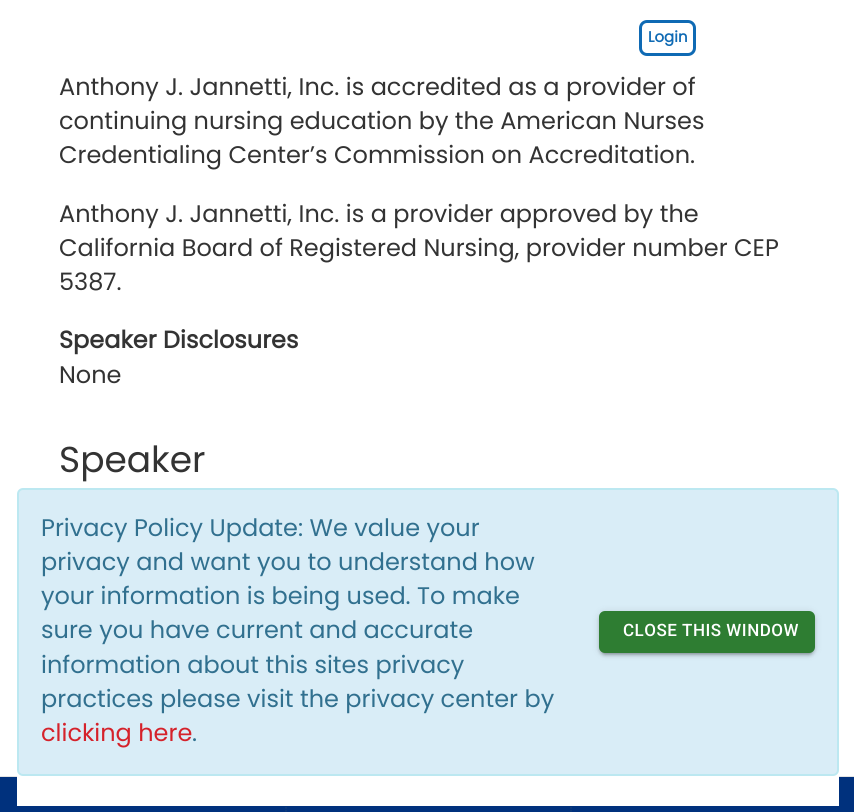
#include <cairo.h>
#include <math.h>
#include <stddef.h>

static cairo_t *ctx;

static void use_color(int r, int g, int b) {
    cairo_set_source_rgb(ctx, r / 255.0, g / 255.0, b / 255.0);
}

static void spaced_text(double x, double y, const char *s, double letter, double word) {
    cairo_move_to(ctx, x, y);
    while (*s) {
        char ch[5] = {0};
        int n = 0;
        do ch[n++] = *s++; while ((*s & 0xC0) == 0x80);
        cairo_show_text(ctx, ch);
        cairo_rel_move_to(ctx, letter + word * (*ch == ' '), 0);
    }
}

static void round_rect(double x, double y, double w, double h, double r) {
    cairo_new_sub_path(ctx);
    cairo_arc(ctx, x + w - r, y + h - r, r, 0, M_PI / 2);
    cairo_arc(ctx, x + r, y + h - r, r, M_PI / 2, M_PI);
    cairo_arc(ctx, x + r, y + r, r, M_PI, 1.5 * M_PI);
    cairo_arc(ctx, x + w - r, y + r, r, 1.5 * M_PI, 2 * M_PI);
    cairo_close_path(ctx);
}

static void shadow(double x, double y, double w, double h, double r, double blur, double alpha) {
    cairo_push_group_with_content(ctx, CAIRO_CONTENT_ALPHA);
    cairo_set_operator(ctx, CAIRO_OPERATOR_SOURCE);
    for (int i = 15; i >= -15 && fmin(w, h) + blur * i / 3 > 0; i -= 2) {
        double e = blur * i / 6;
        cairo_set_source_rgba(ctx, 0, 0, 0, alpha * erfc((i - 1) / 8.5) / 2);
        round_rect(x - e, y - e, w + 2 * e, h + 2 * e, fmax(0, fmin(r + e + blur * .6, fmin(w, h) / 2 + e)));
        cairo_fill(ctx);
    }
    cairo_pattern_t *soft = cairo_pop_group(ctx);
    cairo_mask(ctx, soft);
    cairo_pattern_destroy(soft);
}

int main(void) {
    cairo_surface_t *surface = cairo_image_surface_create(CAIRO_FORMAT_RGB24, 854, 812);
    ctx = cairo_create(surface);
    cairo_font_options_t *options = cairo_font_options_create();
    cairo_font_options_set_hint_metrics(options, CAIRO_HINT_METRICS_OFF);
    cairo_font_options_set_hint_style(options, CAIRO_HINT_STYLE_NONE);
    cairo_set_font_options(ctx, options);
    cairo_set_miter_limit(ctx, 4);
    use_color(255, 255, 255);
    cairo_paint(ctx);
    round_rect(640.5, 21.5, 54, 33, 6.5);
    use_color(15, 106, 180);
    cairo_set_line_width(ctx, 3);
    cairo_stroke(ctx);
    cairo_select_font_face(ctx, "Poppins", CAIRO_FONT_SLANT_NORMAL, CAIRO_FONT_WEIGHT_BOLD);
    cairo_set_font_size(ctx, 15);
    cairo_move_to(ctx, 648, 42);
    cairo_show_text(ctx, "Login");
    cairo_select_font_face(ctx, "Poppins", CAIRO_FONT_SLANT_NORMAL, CAIRO_FONT_WEIGHT_NORMAL);
    cairo_set_font_size(ctx, 24);
    use_color(51, 51, 51);
    cairo_move_to(ctx, 59, 95);
    cairo_show_text(ctx, "Anthony J. Jannetti, Inc. is accredited as a provider of");
    cairo_move_to(ctx, 59, 129);
    cairo_show_text(ctx, "continuing nursing education by the American Nurses");
    cairo_move_to(ctx, 59, 163);
    cairo_show_text(ctx, "Credentialing Center’s Commission on Accreditation.");
    cairo_move_to(ctx, 59, 222);
    cairo_show_text(ctx, "Anthony J. Jannetti, Inc. is a provider approved by the");
    cairo_move_to(ctx, 59, 256);
    cairo_show_text(ctx, "California Board of Registered Nursing, provider number CEP");
    cairo_move_to(ctx, 59, 290);
    cairo_show_text(ctx, "5387.");
    cairo_select_font_face(ctx, "Poppins", CAIRO_FONT_SLANT_NORMAL, CAIRO_FONT_WEIGHT_BOLD);
    cairo_move_to(ctx, 59, 348);
    cairo_show_text(ctx, "Speaker Disclosures");
    cairo_select_font_face(ctx, "Poppins", CAIRO_FONT_SLANT_NORMAL, CAIRO_FONT_WEIGHT_NORMAL);
    cairo_move_to(ctx, 59, 383);
    cairo_show_text(ctx, "None");
    cairo_set_font_size(ctx, 36);
    cairo_move_to(ctx, 59, 472);
    cairo_show_text(ctx, "Speaker");
    use_color(228, 228, 228);
    cairo_rectangle(ctx, 0, 776, 854, 1);
    cairo_fill(ctx);
    use_color(0, 49, 125);
    cairo_rectangle(ctx, 0, 777, 854, 35);
    cairo_fill(ctx);
    cairo_new_path(ctx);
    cairo_move_to(ctx, 286, 777);
    cairo_line_to(ctx, 286, 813);
    use_color(20, 60, 120);
    cairo_set_line_width(ctx, 1.5);
    cairo_set_dash(ctx, (double[]){1.5, 1.5}, 2, 0);
    cairo_stroke(ctx);
    cairo_new_path(ctx);
    cairo_move_to(ctx, 571, 777);
    cairo_line_to(ctx, 571, 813);
    cairo_stroke(ctx);
    use_color(255, 255, 255);
    cairo_rectangle(ctx, 17, 776, 822, 30);
    cairo_fill(ctx);
    use_color(217, 237, 247);
    round_rect(18, 489, 820, 286, 5);
    cairo_fill_preserve(ctx);
    use_color(188, 232, 241);
    cairo_set_line_width(ctx, 2);
    cairo_set_dash(ctx, NULL, 0, 0);
    cairo_stroke(ctx);
    cairo_set_font_size(ctx, 24);
    use_color(49, 112, 143);
    cairo_move_to(ctx, 41, 536);
    cairo_show_text(ctx, "Privacy Policy Update: We value your");
    cairo_move_to(ctx, 41, 570);
    cairo_show_text(ctx, "privacy and want you to understand how");
    cairo_move_to(ctx, 41, 604);
    cairo_show_text(ctx, "your information is being used. To make");
    cairo_move_to(ctx, 41, 638);
    cairo_show_text(ctx, "sure you have current and accurate");
    cairo_move_to(ctx, 41, 673);
    cairo_show_text(ctx, "information about this sites privacy");
    cairo_move_to(ctx, 41, 707);
    cairo_show_text(ctx, "practices please visit the privacy center by");
    use_color(213, 34, 43);
    cairo_move_to(ctx, 41, 741);
    cairo_show_text(ctx, "clicking here");
    use_color(49, 112, 143);
    cairo_move_to(ctx, 192, 741);
    cairo_show_text(ctx, ".");
    use_color(0, 0, 0);
    shadow(599, 612, 216, 42, 6, 4, 0.12);
    shadow(599, 614, 216, 42, 6, 1.5, 0.14);
    shadow(602, 618, 210, 36, 3, 1, 0.2);
    use_color(46, 125, 50);
    round_rect(599, 611, 216, 42, 6);
    cairo_fill(ctx);
    cairo_select_font_face(ctx, "Roboto Medium", CAIRO_FONT_SLANT_NORMAL, CAIRO_FONT_WEIGHT_NORMAL);
    cairo_set_font_size(ctx, 17);
    use_color(255, 255, 255);
    spaced_text(623, 636, "CLOSE THIS WINDOW", 0.5, 0);
    cairo_surface_write_to_png(surface, "result.png");
    cairo_font_options_destroy(options);
    cairo_destroy(ctx);
    cairo_surface_destroy(surface);
    return 0;
}
